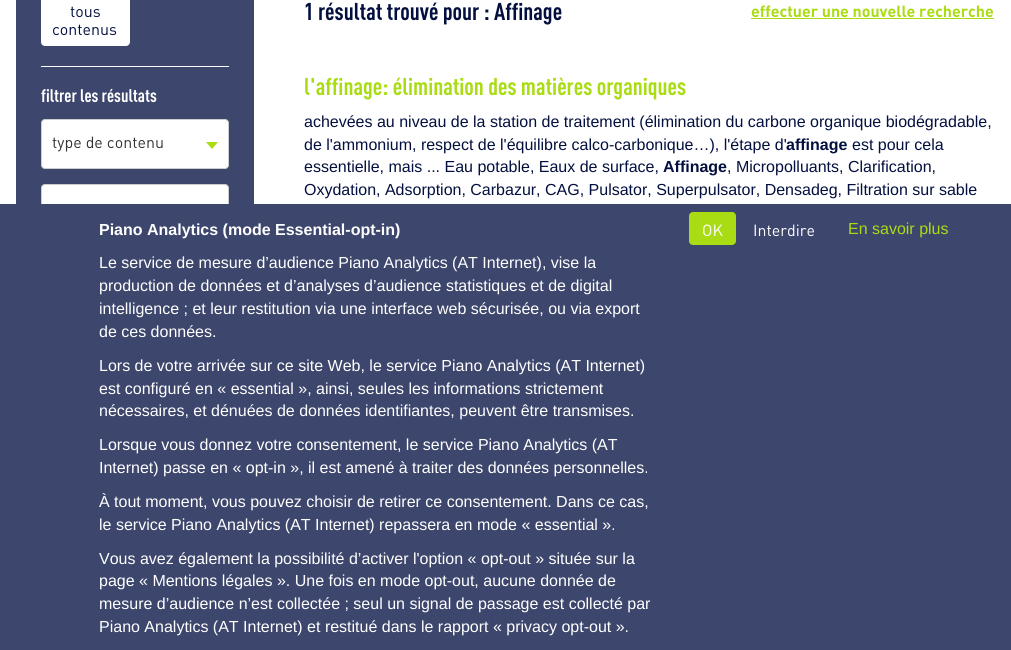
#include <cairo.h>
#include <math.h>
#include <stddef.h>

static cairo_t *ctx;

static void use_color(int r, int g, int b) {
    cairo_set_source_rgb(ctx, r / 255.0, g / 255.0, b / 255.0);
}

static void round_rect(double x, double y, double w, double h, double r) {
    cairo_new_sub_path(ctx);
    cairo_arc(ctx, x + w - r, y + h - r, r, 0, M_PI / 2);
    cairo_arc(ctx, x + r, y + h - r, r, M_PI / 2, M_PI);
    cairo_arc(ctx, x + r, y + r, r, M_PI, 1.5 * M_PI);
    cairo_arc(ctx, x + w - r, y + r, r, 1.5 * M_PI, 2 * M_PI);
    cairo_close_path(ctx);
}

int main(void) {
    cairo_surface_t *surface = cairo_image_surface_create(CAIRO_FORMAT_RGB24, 1011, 650);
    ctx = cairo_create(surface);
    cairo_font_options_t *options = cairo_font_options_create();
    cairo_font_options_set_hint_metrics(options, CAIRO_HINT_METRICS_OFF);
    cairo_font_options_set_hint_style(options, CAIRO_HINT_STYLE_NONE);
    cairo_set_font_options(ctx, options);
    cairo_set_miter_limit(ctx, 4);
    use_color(255, 255, 255);
    cairo_paint(ctx);
    use_color(61, 70, 108);
    cairo_rectangle(ctx, 16, 0, 238, 204);
    cairo_fill(ctx);
    use_color(255, 255, 255);
    round_rect(41, -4, 89, 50, 4);
    cairo_fill(ctx);
    cairo_select_font_face(ctx, "DIN", CAIRO_FONT_SLANT_NORMAL, CAIRO_FONT_WEIGHT_NORMAL);
    cairo_set_font_size(ctx, 16);
    use_color(3, 15, 63);
    cairo_move_to(ctx, 70, 17);
    cairo_show_text(ctx, "tous");
    cairo_move_to(ctx, 52, 35);
    cairo_show_text(ctx, "contenus");
    use_color(255, 255, 255);
    cairo_rectangle(ctx, 41, 66, 188, 1);
    cairo_fill(ctx);
    cairo_select_font_face(ctx, "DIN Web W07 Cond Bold", CAIRO_FONT_SLANT_NORMAL, CAIRO_FONT_WEIGHT_BOLD);
    cairo_set_font_size(ctx, 18);
    cairo_move_to(ctx, 41, 102);
    cairo_show_text(ctx, "filtrer les résultats");
    round_rect(41.5, 119.5, 187, 49, 3.5);
    cairo_fill_preserve(ctx);
    use_color(204, 204, 204);
    cairo_set_line_width(ctx, 1);
    cairo_stroke(ctx);
    cairo_select_font_face(ctx, "DIN", CAIRO_FONT_SLANT_NORMAL, CAIRO_FONT_WEIGHT_NORMAL);
    cairo_set_font_size(ctx, 16);
    use_color(51, 51, 51);
    cairo_move_to(ctx, 52, 148);
    cairo_show_text(ctx, "type de contenu");
    use_color(170, 220, 20);
    cairo_new_path(ctx);
    cairo_move_to(ctx, 206, 142);
    cairo_line_to(ctx, 218, 142);
    cairo_line_to(ctx, 212, 149);
    cairo_close_path(ctx);
    cairo_fill(ctx);
    use_color(255, 255, 255);
    round_rect(41.5, 184.5, 187, 49, 3.5);
    cairo_fill_preserve(ctx);
    use_color(204, 204, 204);
    cairo_stroke(ctx);
    cairo_select_font_face(ctx, "DIN Web W07 Cond Bold", CAIRO_FONT_SLANT_NORMAL, CAIRO_FONT_WEIGHT_BOLD);
    cairo_set_font_size(ctx, 24);
    use_color(3, 15, 63);
    cairo_move_to(ctx, 304, 20);
    cairo_show_text(ctx, "1 résultat trouvé pour : Affinage");
    cairo_select_font_face(ctx, "DIN", CAIRO_FONT_SLANT_NORMAL, CAIRO_FONT_WEIGHT_BOLD);
    cairo_set_font_size(ctx, 16);
    use_color(170, 220, 20);
    cairo_move_to(ctx, 751, 17);
    cairo_show_text(ctx, "effectuer une nouvelle recherche");
    cairo_rectangle(ctx, 751, 18, 243, 1);
    cairo_fill(ctx);
    cairo_select_font_face(ctx, "DIN Web W07 Cond Bold", CAIRO_FONT_SLANT_NORMAL, CAIRO_FONT_WEIGHT_BOLD);
    cairo_set_font_size(ctx, 24);
    cairo_move_to(ctx, 304, 95);
    cairo_show_text(ctx, "l'affinage: élimination des matières organiques");
    cairo_select_font_face(ctx, "Liberation Sans", CAIRO_FONT_SLANT_NORMAL, CAIRO_FONT_WEIGHT_NORMAL);
    cairo_set_font_size(ctx, 16);
    use_color(3, 15, 63);
    cairo_move_to(ctx, 304, 127);
    cairo_show_text(ctx, "achevées au niveau de la station de traitement (élimination du carbone organique biodégradable,");
    cairo_move_to(ctx, 304, 150);
    cairo_show_text(ctx, "de l'ammonium, respect de l'équilibre calco-carbonique…), l'étape d'");
    cairo_select_font_face(ctx, "Liberation Sans", CAIRO_FONT_SLANT_NORMAL, CAIRO_FONT_WEIGHT_BOLD);
    cairo_move_to(ctx, 786, 150);
    cairo_show_text(ctx, "affinage");
    cairo_select_font_face(ctx, "Liberation Sans", CAIRO_FONT_SLANT_NORMAL, CAIRO_FONT_WEIGHT_NORMAL);
    cairo_move_to(ctx, 852, 150);
    cairo_show_text(ctx, "est pour cela");
    cairo_move_to(ctx, 304, 172);
    cairo_show_text(ctx, "essentielle, mais ... Eau potable, Eaux de surface,");
    cairo_select_font_face(ctx, "Liberation Sans", CAIRO_FONT_SLANT_NORMAL, CAIRO_FONT_WEIGHT_BOLD);
    cairo_move_to(ctx, 663, 172);
    cairo_show_text(ctx, "Affinage");
    cairo_select_font_face(ctx, "Liberation Sans", CAIRO_FONT_SLANT_NORMAL, CAIRO_FONT_WEIGHT_NORMAL);
    cairo_move_to(ctx, 727, 172);
    cairo_show_text(ctx, ", Micropolluants, Clarification,");
    cairo_move_to(ctx, 304, 195);
    cairo_show_text(ctx, "Oxydation, Adsorption, Carbazur, CAG, Pulsator, Superpulsator, Densadeg, Filtration sur sable");
    use_color(61, 70, 108);
    cairo_rectangle(ctx, 0, 204, 1011, 446);
    cairo_fill(ctx);
    cairo_select_font_face(ctx, "Liberation Sans", CAIRO_FONT_SLANT_NORMAL, CAIRO_FONT_WEIGHT_BOLD);
    use_color(255, 255, 255);
    cairo_move_to(ctx, 99, 235);
    cairo_show_text(ctx, "Piano Analytics (mode Essential-opt-in)");
    cairo_select_font_face(ctx, "Liberation Sans", CAIRO_FONT_SLANT_NORMAL, CAIRO_FONT_WEIGHT_NORMAL);
    cairo_move_to(ctx, 99, 268);
    cairo_show_text(ctx, "Le service de mesure d’audience Piano Analytics (AT Internet), vise la");
    cairo_move_to(ctx, 99, 291);
    cairo_show_text(ctx, "production de données et d’analyses d’audience statistiques et de digital");
    cairo_move_to(ctx, 99, 314);
    cairo_show_text(ctx, "intelligence ; et leur restitution via une interface web sécurisée, ou via export");
    cairo_move_to(ctx, 99, 337);
    cairo_show_text(ctx, "de ces données.");
    cairo_move_to(ctx, 99, 371);
    cairo_show_text(ctx, "Lors de votre arrivée sur ce site Web, le service Piano Analytics (AT Internet)");
    cairo_move_to(ctx, 99, 394);
    cairo_show_text(ctx, "est configuré en « essential », ainsi, seules les informations strictement");
    cairo_move_to(ctx, 99, 416);
    cairo_show_text(ctx, "nécessaires, et dénuées de données identifiantes, peuvent être transmises.");
    cairo_move_to(ctx, 99, 450);
    cairo_show_text(ctx, "Lorsque vous donnez votre consentement, le service Piano Analytics (AT");
    cairo_move_to(ctx, 99, 473);
    cairo_show_text(ctx, "Internet) passe en « opt-in », il est amené à traiter des données personnelles.");
    cairo_move_to(ctx, 99, 507);
    cairo_show_text(ctx, "À tout moment, vous pouvez choisir de retirer ce consentement. Dans ce cas,");
    cairo_move_to(ctx, 99, 530);
    cairo_show_text(ctx, "le service Piano Analytics (AT Internet) repassera en mode « essential ».");
    cairo_move_to(ctx, 99, 564);
    cairo_show_text(ctx, "Vous avez également la possibilité d’activer l'option « opt-out » située sur la");
    cairo_move_to(ctx, 99, 586);
    cairo_show_text(ctx, "page « Mentions légales ». Une fois en mode opt-out, aucune donnée de");
    cairo_move_to(ctx, 99, 609);
    cairo_show_text(ctx, "mesure d’audience n’est collectée ; seul un signal de passage est collecté par");
    cairo_move_to(ctx, 99, 632);
    cairo_show_text(ctx, "Piano Analytics (AT Internet) et restitué dans le rapport « privacy opt-out ».");
    use_color(170, 220, 20);
    round_rect(689, 212, 47, 33, 4);
    cairo_fill(ctx);
    cairo_select_font_face(ctx, "DIN", CAIRO_FONT_SLANT_NORMAL, CAIRO_FONT_WEIGHT_NORMAL);
    use_color(255, 255, 255);
    cairo_move_to(ctx, 702, 236);
    cairo_show_text(ctx, "OK");
    cairo_move_to(ctx, 753, 236);
    cairo_show_text(ctx, "Interdire");
    cairo_select_font_face(ctx, "Liberation Sans", CAIRO_FONT_SLANT_NORMAL, CAIRO_FONT_WEIGHT_NORMAL);
    use_color(170, 220, 20);
    cairo_move_to(ctx, 848, 234);
    cairo_show_text(ctx, "En savoir plus");
    cairo_surface_write_to_png(surface, "result.png");
    cairo_font_options_destroy(options);
    cairo_destroy(ctx);
    cairo_surface_destroy(surface);
    return 0;
}
